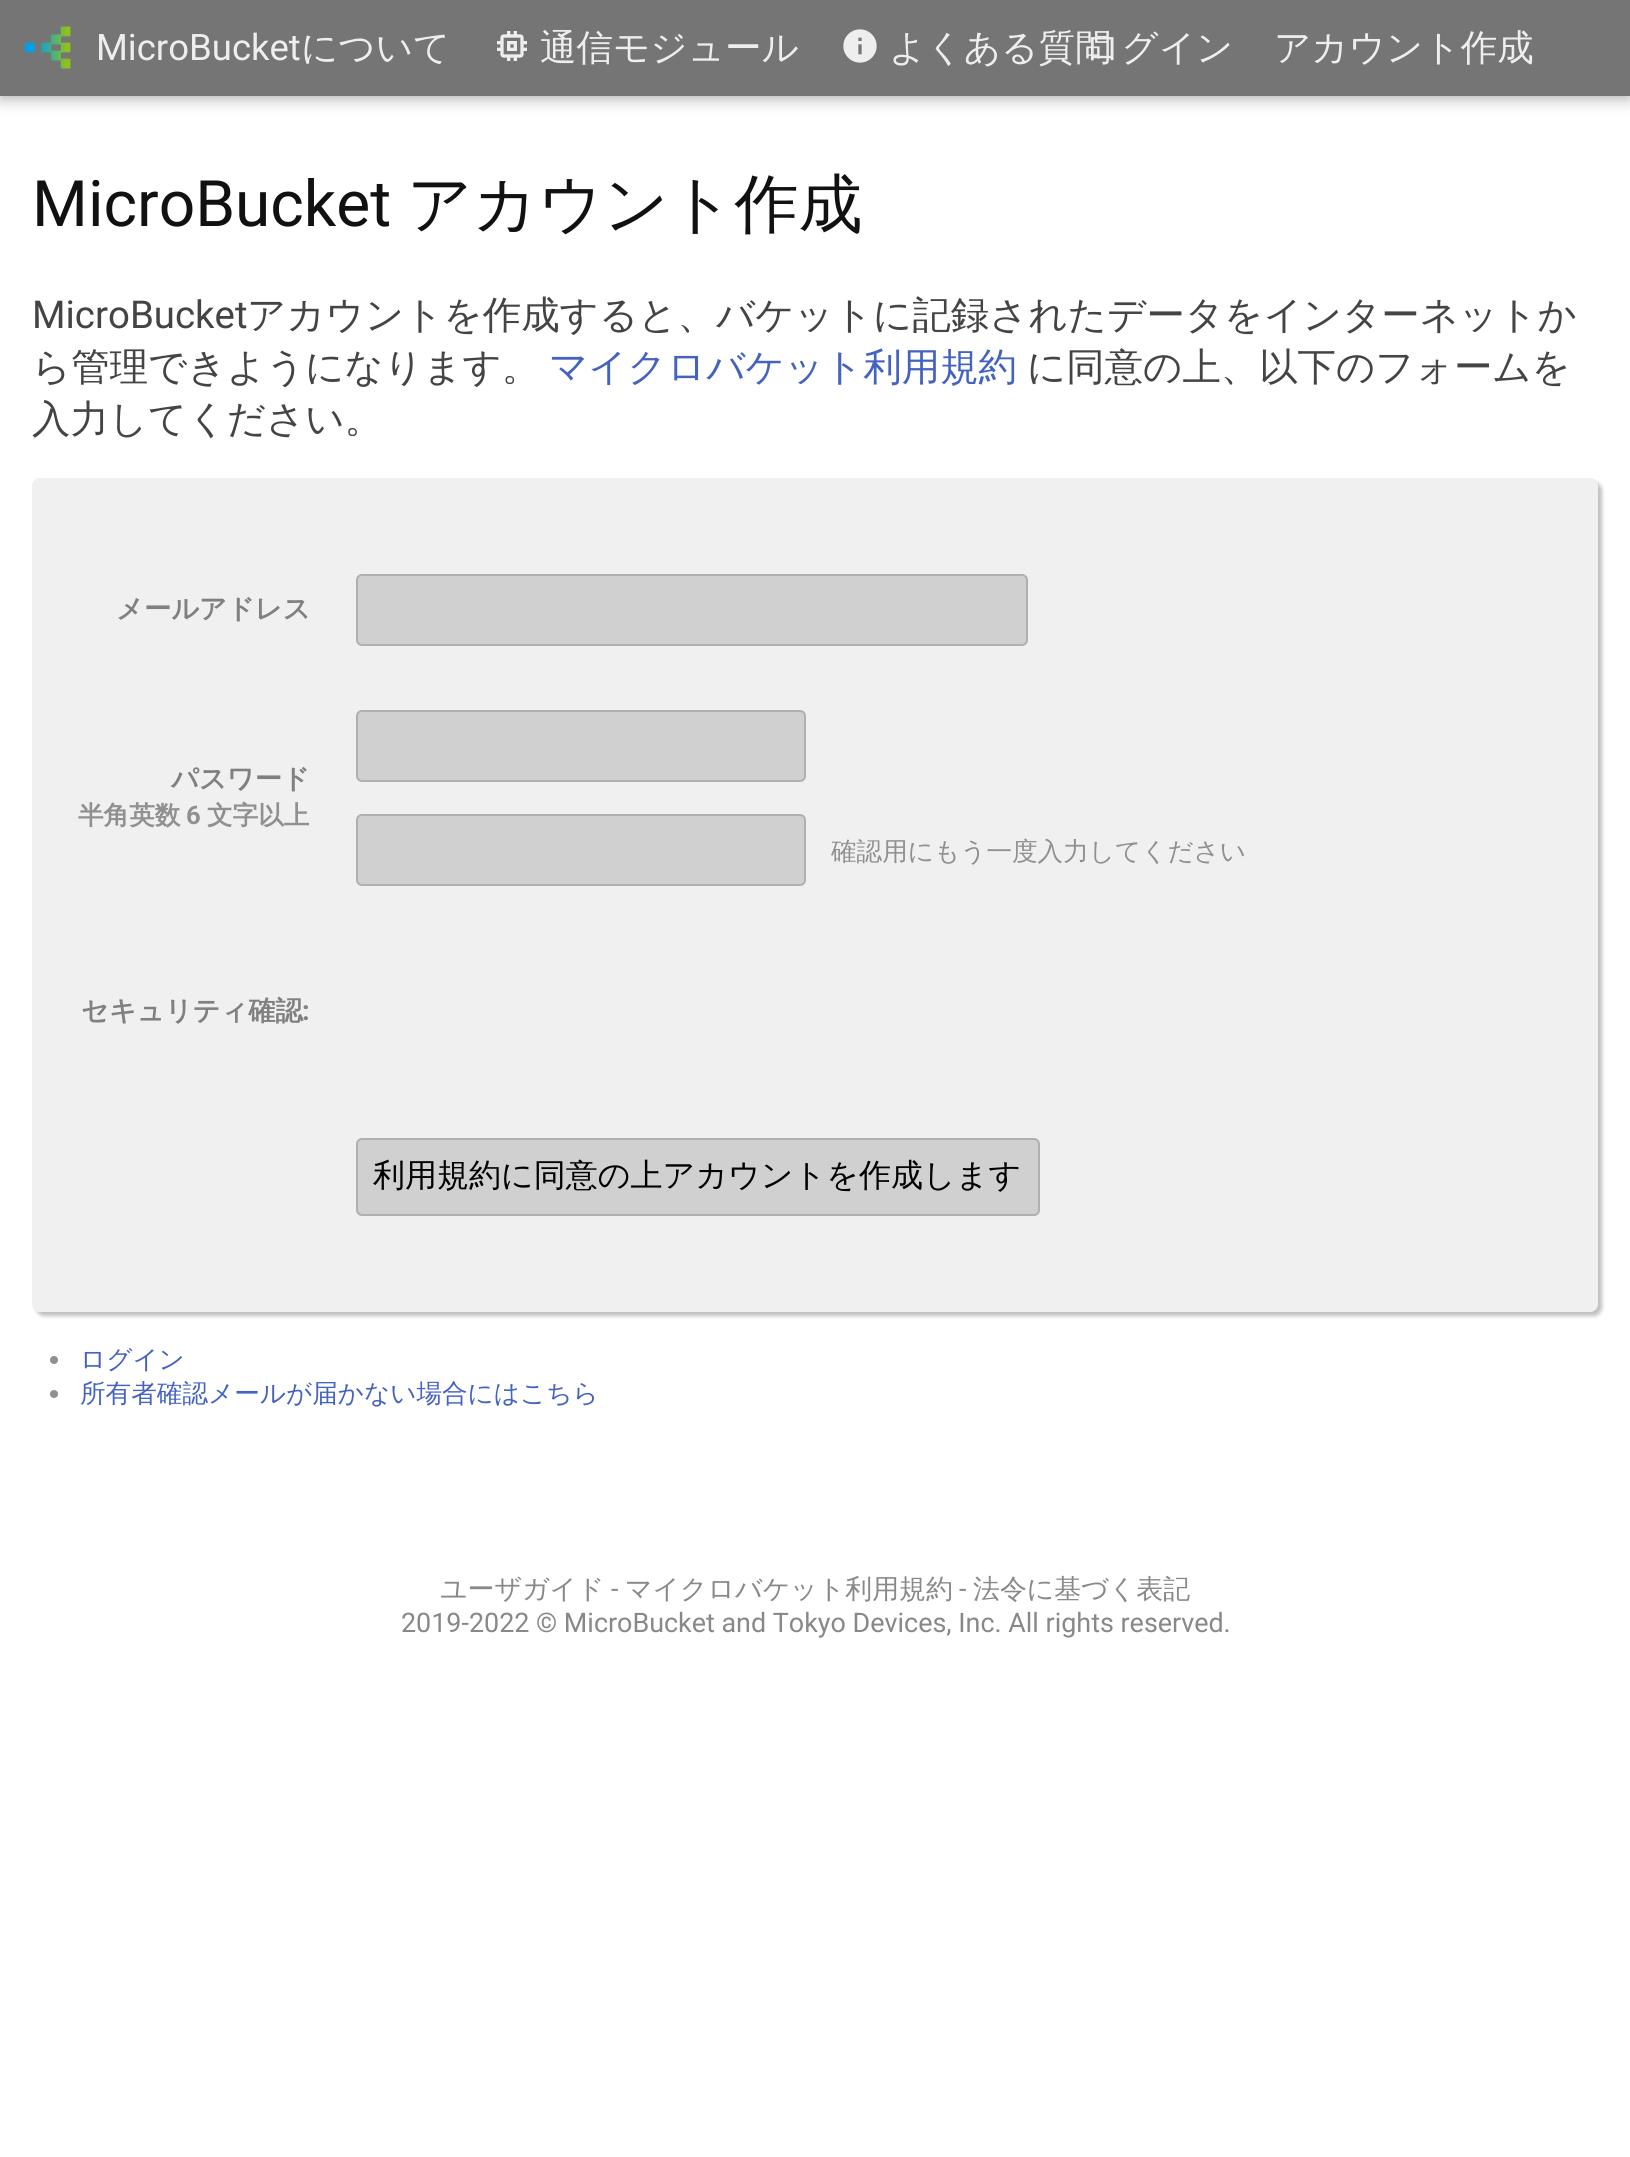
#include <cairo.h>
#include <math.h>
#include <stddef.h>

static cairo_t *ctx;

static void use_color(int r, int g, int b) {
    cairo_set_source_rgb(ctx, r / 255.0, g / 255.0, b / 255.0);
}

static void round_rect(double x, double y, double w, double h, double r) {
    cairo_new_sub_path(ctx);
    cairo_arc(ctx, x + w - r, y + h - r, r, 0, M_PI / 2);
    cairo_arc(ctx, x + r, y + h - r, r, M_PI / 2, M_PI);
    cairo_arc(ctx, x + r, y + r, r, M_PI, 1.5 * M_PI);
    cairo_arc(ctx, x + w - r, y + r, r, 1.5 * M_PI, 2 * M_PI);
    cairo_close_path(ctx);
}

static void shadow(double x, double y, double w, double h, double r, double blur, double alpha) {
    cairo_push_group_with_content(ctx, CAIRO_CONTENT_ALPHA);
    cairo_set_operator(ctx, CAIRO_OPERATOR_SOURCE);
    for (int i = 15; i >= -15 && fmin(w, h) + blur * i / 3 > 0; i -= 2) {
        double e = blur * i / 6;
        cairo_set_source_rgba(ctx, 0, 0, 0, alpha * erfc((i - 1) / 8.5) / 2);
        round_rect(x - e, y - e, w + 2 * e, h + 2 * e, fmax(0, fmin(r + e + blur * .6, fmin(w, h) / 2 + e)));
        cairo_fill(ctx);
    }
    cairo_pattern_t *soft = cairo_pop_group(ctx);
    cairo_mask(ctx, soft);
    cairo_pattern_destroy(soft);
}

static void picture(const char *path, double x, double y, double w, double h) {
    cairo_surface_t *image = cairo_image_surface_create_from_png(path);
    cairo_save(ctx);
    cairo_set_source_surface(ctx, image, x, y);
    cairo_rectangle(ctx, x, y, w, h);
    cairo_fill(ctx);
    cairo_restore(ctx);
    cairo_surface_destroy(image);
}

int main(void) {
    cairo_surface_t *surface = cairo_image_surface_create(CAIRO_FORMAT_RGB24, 1630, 2157);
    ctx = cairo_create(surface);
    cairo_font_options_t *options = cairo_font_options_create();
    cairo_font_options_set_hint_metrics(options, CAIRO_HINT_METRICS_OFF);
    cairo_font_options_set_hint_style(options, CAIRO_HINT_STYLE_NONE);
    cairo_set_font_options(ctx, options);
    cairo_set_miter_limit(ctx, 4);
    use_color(255, 255, 255);
    cairo_paint(ctx);
    use_color(0, 0, 0);
    shadow(0, 6, 1630, 96, 0, 6.5, 0.2);
    shadow(0, 0, 1630, 96, 0, 3, 0.1);
    use_color(117, 117, 117);
    cairo_rectangle(ctx, 0, 0, 1630, 96);
    cairo_fill(ctx);
    picture("img1.png", 24, 26, 47, 43);
    cairo_select_font_face(ctx, "Roboto", CAIRO_FONT_SLANT_NORMAL, CAIRO_FONT_WEIGHT_NORMAL);
    cairo_set_font_size(ctx, 36.5);
    use_color(238, 238, 238);
    cairo_move_to(ctx, 96, 60);
    cairo_show_text(ctx, "MicroBucket");
    cairo_select_font_face(ctx, "WenQuanYi Zen Hei Medium", CAIRO_FONT_SLANT_NORMAL, CAIRO_FONT_WEIGHT_NORMAL);
    cairo_move_to(ctx, 301, 60);
    cairo_show_text(ctx, "について");
    picture("img2.png", 497, 31, 30, 30);
    cairo_move_to(ctx, 540, 60);
    cairo_show_text(ctx, "通信モジュール");
    picture("img3.png", 843, 29, 34, 34);
    cairo_move_to(ctx, 889, 60);
    cairo_show_text(ctx, "よくある質問");
    cairo_move_to(ctx, 1084, 60);
    cairo_show_text(ctx, "ログイン");
    cairo_move_to(ctx, 1274, 60);
    cairo_show_text(ctx, "アカウント作成");
    cairo_select_font_face(ctx, "Roboto", CAIRO_FONT_SLANT_NORMAL, CAIRO_FONT_WEIGHT_NORMAL);
    cairo_set_font_size(ctx, 64);
    use_color(17, 17, 17);
    cairo_move_to(ctx, 32, 226);
    cairo_show_text(ctx, "MicroBucket");
    cairo_select_font_face(ctx, "WenQuanYi Zen Hei Medium", CAIRO_FONT_SLANT_NORMAL, CAIRO_FONT_WEIGHT_NORMAL);
    cairo_move_to(ctx, 407, 226);
    cairo_show_text(ctx, "アカウント作成");
    cairo_select_font_face(ctx, "Roboto", CAIRO_FONT_SLANT_NORMAL, CAIRO_FONT_WEIGHT_NORMAL);
    cairo_set_font_size(ctx, 38.4);
    use_color(68, 68, 68);
    cairo_move_to(ctx, 32, 328);
    cairo_show_text(ctx, "MicroBucket");
    cairo_select_font_face(ctx, "WenQuanYi Zen Hei Medium", CAIRO_FONT_SLANT_NORMAL, CAIRO_FONT_WEIGHT_NORMAL);
    cairo_move_to(ctx, 247, 328);
    cairo_show_text(ctx, "アカウントを作成すると、バケットに記録されたデータをインターネットか");
    cairo_move_to(ctx, 32, 380);
    cairo_show_text(ctx, "ら管理できようになります。");
    use_color(68, 99, 192);
    cairo_move_to(ctx, 549, 380);
    cairo_show_text(ctx, "マイクロバケット利用規約");
    use_color(68, 68, 68);
    cairo_move_to(ctx, 1027, 380);
    cairo_show_text(ctx, "に同意の上、以下のフォームを");
    cairo_move_to(ctx, 32, 432);
    cairo_show_text(ctx, "入力してください。");
    use_color(0, 0, 0);
    shadow(36, 482, 1566, 834, 8, 2, 0.25);
    use_color(240, 240, 240);
    round_rect(32, 478, 1566, 834, 8);
    cairo_fill(ctx);
    cairo_select_font_face(ctx, "WenQuanYi Zen Hei", CAIRO_FONT_SLANT_NORMAL, CAIRO_FONT_WEIGHT_BOLD);
    cairo_set_font_size(ctx, 27.25);
    use_color(128, 128, 128);
    cairo_move_to(ctx, 116, 618);
    cairo_show_text(ctx, "メールアドレス");
    use_color(208, 208, 208);
    round_rect(357, 575, 670, 70, 5);
    cairo_fill_preserve(ctx);
    use_color(176, 176, 176);
    cairo_stroke(ctx);
    use_color(128, 128, 128);
    cairo_move_to(ctx, 171, 788);
    cairo_show_text(ctx, "パスワード");
    cairo_set_font_size(ctx, 25.6);
    use_color(144, 144, 144);
    cairo_move_to(ctx, 78, 824);
    cairo_show_text(ctx, "半角英数");
    cairo_select_font_face(ctx, "Roboto", CAIRO_FONT_SLANT_NORMAL, CAIRO_FONT_WEIGHT_BOLD);
    cairo_move_to(ctx, 186, 824);
    cairo_show_text(ctx, "6");
    cairo_select_font_face(ctx, "WenQuanYi Zen Hei", CAIRO_FONT_SLANT_NORMAL, CAIRO_FONT_WEIGHT_BOLD);
    cairo_move_to(ctx, 207, 824);
    cairo_show_text(ctx, "文字以上");
    use_color(208, 208, 208);
    round_rect(357, 711, 448, 70, 5);
    cairo_fill_preserve(ctx);
    use_color(176, 176, 176);
    cairo_stroke(ctx);
    use_color(208, 208, 208);
    round_rect(357, 815, 448, 70, 5);
    cairo_fill_preserve(ctx);
    use_color(176, 176, 176);
    cairo_stroke(ctx);
    cairo_select_font_face(ctx, "WenQuanYi Zen Hei Medium", CAIRO_FONT_SLANT_NORMAL, CAIRO_FONT_WEIGHT_NORMAL);
    use_color(144, 144, 144);
    cairo_move_to(ctx, 831, 860);
    cairo_show_text(ctx, "確認用にもう一度入力してください");
    cairo_select_font_face(ctx, "WenQuanYi Zen Hei", CAIRO_FONT_SLANT_NORMAL, CAIRO_FONT_WEIGHT_BOLD);
    cairo_set_font_size(ctx, 27.25);
    use_color(128, 128, 128);
    cairo_move_to(ctx, 81, 1020);
    cairo_show_text(ctx, "セキュリティ確認");
    cairo_select_font_face(ctx, "Roboto", CAIRO_FONT_SLANT_NORMAL, CAIRO_FONT_WEIGHT_BOLD);
    cairo_move_to(ctx, 302, 1020);
    cairo_show_text(ctx, ":");
    use_color(208, 208, 208);
    round_rect(357, 1139, 682, 76, 5);
    cairo_fill_preserve(ctx);
    use_color(176, 176, 176);
    cairo_stroke(ctx);
    cairo_select_font_face(ctx, "WenQuanYi Zen Hei Medium", CAIRO_FONT_SLANT_NORMAL, CAIRO_FONT_WEIGHT_NORMAL);
    cairo_set_font_size(ctx, 32);
    use_color(0, 0, 0);
    cairo_move_to(ctx, 373, 1186);
    cairo_show_text(ctx, "利用規約に同意の上アカウントを作成します");
    use_color(144, 144, 144);
    cairo_new_path(ctx);
    cairo_arc(ctx, 54, 1360, 4, 0, 2 * M_PI);
    cairo_fill(ctx);
    cairo_set_font_size(ctx, 25.6);
    use_color(68, 99, 192);
    cairo_move_to(ctx, 80, 1368);
    cairo_show_text(ctx, "ログイン");
    use_color(144, 144, 144);
    cairo_new_path(ctx);
    cairo_arc(ctx, 54, 1394, 4, 0, 2 * M_PI);
    cairo_fill(ctx);
    use_color(68, 99, 192);
    cairo_move_to(ctx, 80, 1402);
    cairo_show_text(ctx, "所有者確認メールが届かない場合にはこちら");
    cairo_set_font_size(ctx, 26.9);
    use_color(136, 136, 136);
    cairo_move_to(ctx, 440, 1598);
    cairo_show_text(ctx, "ユーザガイド");
    cairo_select_font_face(ctx, "Roboto", CAIRO_FONT_SLANT_NORMAL, CAIRO_FONT_WEIGHT_NORMAL);
    cairo_move_to(ctx, 611, 1598);
    cairo_show_text(ctx, "-");
    cairo_select_font_face(ctx, "WenQuanYi Zen Hei Medium", CAIRO_FONT_SLANT_NORMAL, CAIRO_FONT_WEIGHT_NORMAL);
    cairo_move_to(ctx, 625, 1598);
    cairo_show_text(ctx, "マイクロバケット利用規約");
    cairo_select_font_face(ctx, "Roboto", CAIRO_FONT_SLANT_NORMAL, CAIRO_FONT_WEIGHT_NORMAL);
    cairo_move_to(ctx, 959, 1598);
    cairo_show_text(ctx, "-");
    cairo_select_font_face(ctx, "WenQuanYi Zen Hei Medium", CAIRO_FONT_SLANT_NORMAL, CAIRO_FONT_WEIGHT_NORMAL);
    cairo_move_to(ctx, 973, 1598);
    cairo_show_text(ctx, "法令に基づく表記");
    cairo_select_font_face(ctx, "Roboto", CAIRO_FONT_SLANT_NORMAL, CAIRO_FONT_WEIGHT_NORMAL);
    cairo_move_to(ctx, 401, 1632);
    cairo_show_text(ctx, "2019-2022 © MicroBucket and Tokyo Devices, Inc. All rights reserved.");
    cairo_surface_write_to_png(surface, "result.png");
    cairo_font_options_destroy(options);
    cairo_destroy(ctx);
    cairo_surface_destroy(surface);
    return 0;
}
